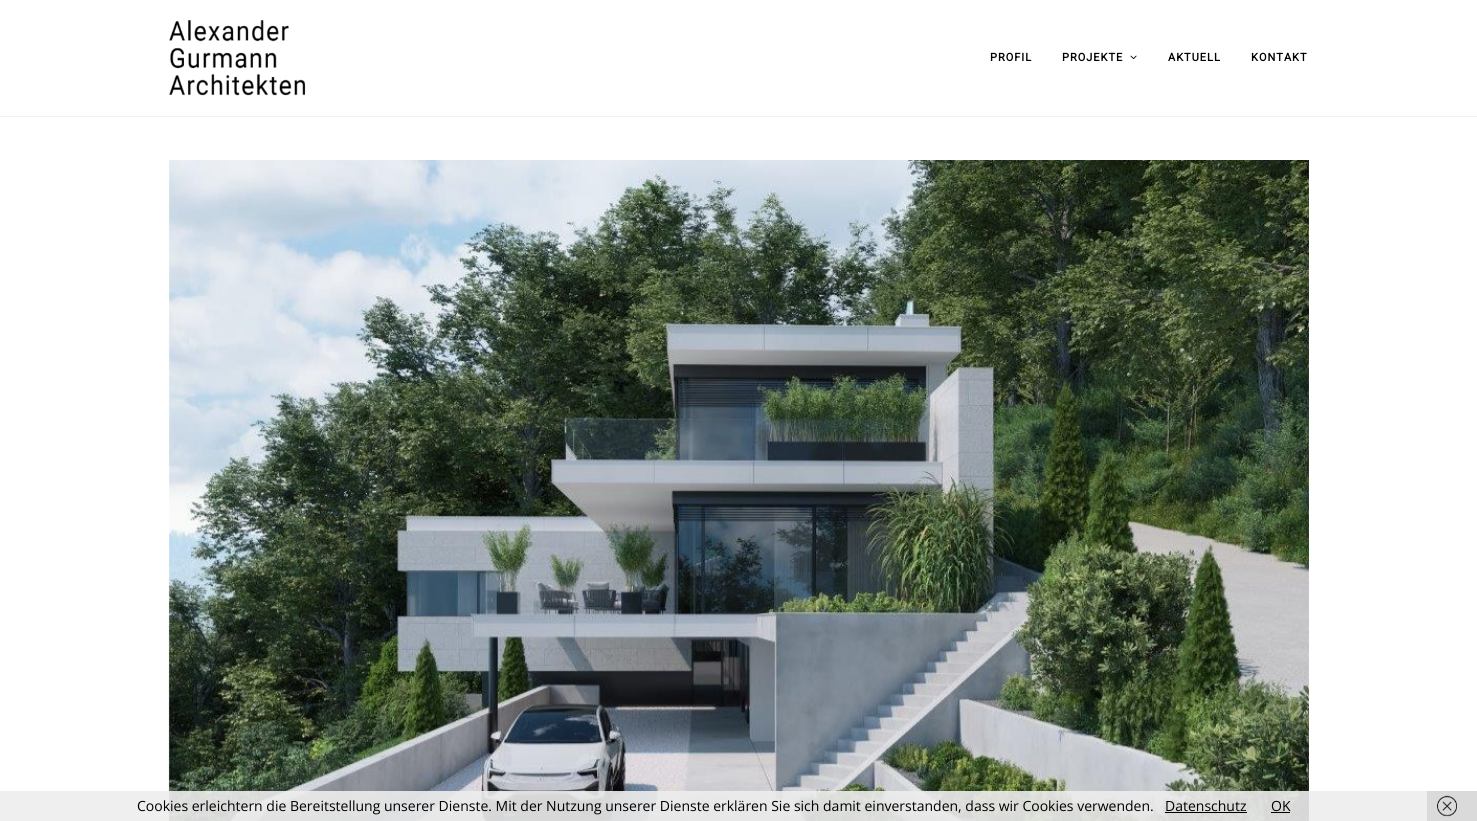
#include <cairo.h>
#include <math.h>
#include <stddef.h>

static cairo_t *ctx;

static void use_color(int r, int g, int b) {
    cairo_set_source_rgb(ctx, r / 255.0, g / 255.0, b / 255.0);
}

static void spaced_text(double x, double y, const char *s, double letter, double word) {
    cairo_move_to(ctx, x, y);
    while (*s) {
        char ch[5] = {0};
        int n = 0;
        do ch[n++] = *s++; while ((*s & 0xC0) == 0x80);
        cairo_show_text(ctx, ch);
        cairo_rel_move_to(ctx, letter + word * (*ch == ' '), 0);
    }
}

static void picture(const char *path, double x, double y, double w, double h) {
    cairo_surface_t *image = cairo_image_surface_create_from_png(path);
    cairo_save(ctx);
    cairo_set_source_surface(ctx, image, x, y);
    cairo_rectangle(ctx, x, y, w, h);
    cairo_fill(ctx);
    cairo_restore(ctx);
    cairo_surface_destroy(image);
}

int main(void) {
    cairo_surface_t *surface = cairo_image_surface_create(CAIRO_FORMAT_RGB24, 1477, 821);
    ctx = cairo_create(surface);
    cairo_font_options_t *options = cairo_font_options_create();
    cairo_font_options_set_hint_metrics(options, CAIRO_HINT_METRICS_OFF);
    cairo_font_options_set_hint_style(options, CAIRO_HINT_STYLE_NONE);
    cairo_set_font_options(ctx, options);
    cairo_set_miter_limit(ctx, 4);
    cairo_pattern_t *gradient;
    use_color(255, 255, 255);
    cairo_paint(ctx);
    use_color(242, 242, 242);
    cairo_rectangle(ctx, 0, 116, 1477, 1);
    cairo_fill(ctx);
    picture("img1.png", 169, 20, 137, 76);
    cairo_select_font_face(ctx, "Roboto", CAIRO_FONT_SLANT_NORMAL, CAIRO_FONT_WEIGHT_BOLD);
    cairo_set_font_size(ctx, 11);
    use_color(0, 0, 0);
    spaced_text(990, 61, "PROFIL", 1, 0);
    spaced_text(1062, 61, "PROJEKTE", 1, 0);
    picture("img2.png", 1130, 55, 7, 5);
    spaced_text(1168, 61, "AKTUELL", 1, 0);
    spaced_text(1251, 61, "KONTAKT", 1, 0);
    picture("img3.png", 168, 160, 1141, 661);
    gradient = cairo_pattern_create_linear(739, 789, 739, 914);
    cairo_pattern_add_color_stop_rgba(gradient, 0, 0, 0, 0, 0);
    cairo_pattern_add_color_stop_rgba(gradient, 1, 0, 0, 0, 0.56);
    cairo_set_source(ctx, gradient);
    cairo_pattern_destroy(gradient);
    cairo_rectangle(ctx, 169, 794, 1140, 27);
    cairo_fill(ctx);
    cairo_set_source_rgba(ctx, 0.933, 0.933, 0.933, 0.9);
    cairo_rectangle(ctx, 0, 791, 1427, 30);
    cairo_fill(ctx);
    cairo_select_font_face(ctx, "Open Sans", CAIRO_FONT_SLANT_NORMAL, CAIRO_FONT_WEIGHT_NORMAL);
    cairo_set_font_size(ctx, 14);
    use_color(0, 0, 0);
    cairo_move_to(ctx, 137, 811);
    cairo_show_text(ctx, "Cookies erleichtern die Bereitstellung unserer Dienste. Mit der Nutzung unserer Dienste erklären Sie sich damit einverstanden, dass wir Cookies verwenden.");
    cairo_move_to(ctx, 1165, 811);
    cairo_show_text(ctx, "Datenschutz");
    cairo_rectangle(ctx, 1165, 812, 82, 1);
    cairo_fill(ctx);
    cairo_move_to(ctx, 1271, 811);
    cairo_show_text(ctx, "OK");
    cairo_rectangle(ctx, 1271, 812, 19, 1);
    cairo_fill(ctx);
    use_color(218, 218, 218);
    cairo_rectangle(ctx, 1427, 791, 50, 30);
    cairo_fill(ctx);
    picture("img4.png", 1437, 795, 20, 22);
    cairo_surface_write_to_png(surface, "result.png");
    cairo_font_options_destroy(options);
    cairo_destroy(ctx);
    cairo_surface_destroy(surface);
    return 0;
}
